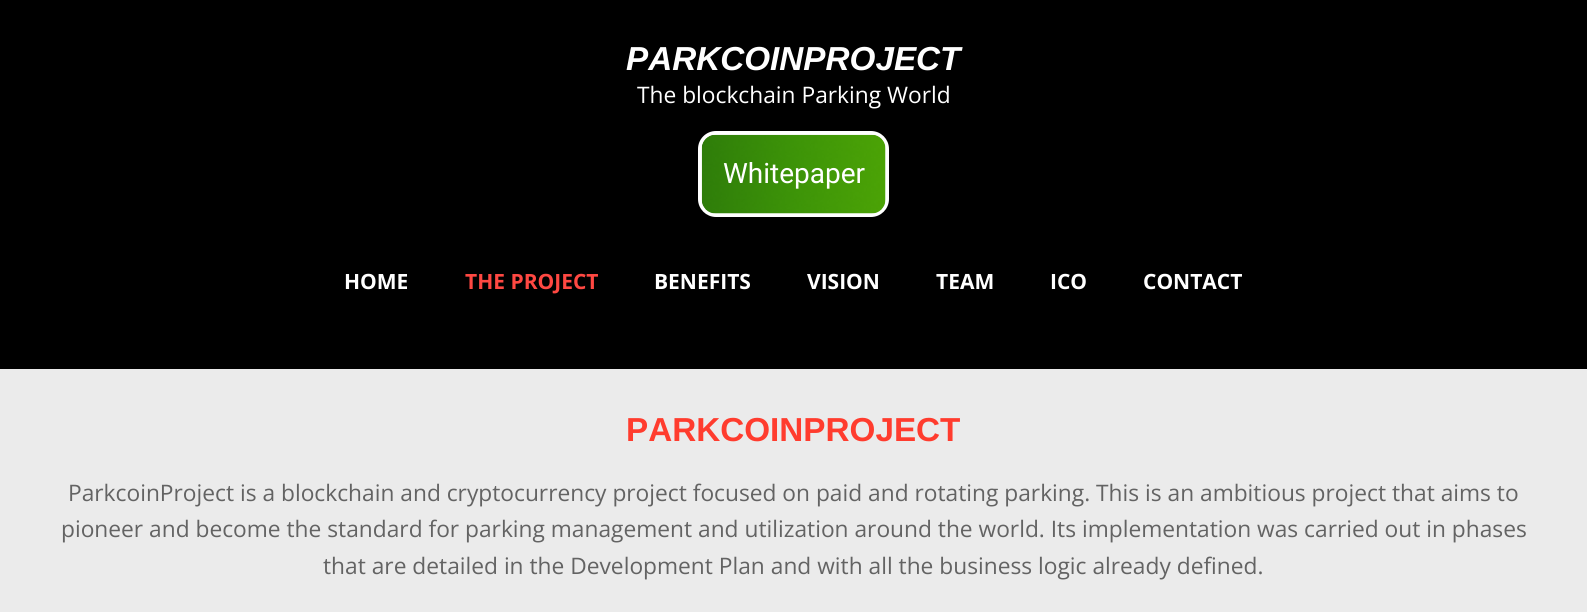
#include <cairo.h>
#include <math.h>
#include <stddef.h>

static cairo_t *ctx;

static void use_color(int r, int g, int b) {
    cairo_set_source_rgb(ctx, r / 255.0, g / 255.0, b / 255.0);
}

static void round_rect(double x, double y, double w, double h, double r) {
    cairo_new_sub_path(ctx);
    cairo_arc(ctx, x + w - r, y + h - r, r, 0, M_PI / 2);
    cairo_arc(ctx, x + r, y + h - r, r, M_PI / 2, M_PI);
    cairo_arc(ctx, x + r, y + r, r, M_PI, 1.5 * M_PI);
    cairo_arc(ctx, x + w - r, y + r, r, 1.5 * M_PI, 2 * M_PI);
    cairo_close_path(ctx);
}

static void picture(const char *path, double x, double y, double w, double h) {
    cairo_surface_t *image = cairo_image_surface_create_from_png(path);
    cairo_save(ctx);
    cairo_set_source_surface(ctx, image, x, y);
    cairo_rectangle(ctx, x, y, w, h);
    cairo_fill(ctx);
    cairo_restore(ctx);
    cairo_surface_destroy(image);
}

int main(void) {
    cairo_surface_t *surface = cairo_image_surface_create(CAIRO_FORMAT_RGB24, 1587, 612);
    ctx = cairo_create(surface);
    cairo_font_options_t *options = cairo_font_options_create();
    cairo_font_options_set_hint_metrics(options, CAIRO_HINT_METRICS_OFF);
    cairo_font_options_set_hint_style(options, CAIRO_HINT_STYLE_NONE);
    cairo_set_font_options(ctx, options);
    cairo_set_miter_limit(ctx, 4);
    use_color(0, 0, 0);
    cairo_paint(ctx);
    cairo_select_font_face(ctx, "Liberation Sans", CAIRO_FONT_SLANT_ITALIC, CAIRO_FONT_WEIGHT_BOLD);
    cairo_set_font_size(ctx, 33.25);
    use_color(255, 255, 255);
    cairo_move_to(ctx, 626, 70);
    cairo_show_text(ctx, "PARKCOINPROJECT");
    cairo_select_font_face(ctx, "Open Sans", CAIRO_FONT_SLANT_NORMAL, CAIRO_FONT_WEIGHT_NORMAL);
    cairo_set_font_size(ctx, 22.75);
    cairo_move_to(ctx, 637, 103);
    cairo_show_text(ctx, "The blockchain Parking World");
    round_rect(700, 133, 187, 82, 16);
    cairo_set_line_width(ctx, 4);
    cairo_stroke(ctx);
    picture("img1.png", 701, 134, 185, 80);
    cairo_select_font_face(ctx, "Roboto", CAIRO_FONT_SLANT_NORMAL, CAIRO_FONT_WEIGHT_NORMAL);
    cairo_set_font_size(ctx, 28);
    cairo_move_to(ctx, 723, 183);
    cairo_show_text(ctx, "Whitepaper");
    cairo_select_font_face(ctx, "Open Sans", CAIRO_FONT_SLANT_NORMAL, CAIRO_FONT_WEIGHT_BOLD);
    cairo_set_font_size(ctx, 21);
    cairo_move_to(ctx, 344, 289);
    cairo_show_text(ctx, "HOME");
    use_color(255, 72, 66);
    cairo_move_to(ctx, 465, 289);
    cairo_show_text(ctx, "THE PROJECT");
    use_color(255, 255, 255);
    cairo_move_to(ctx, 654, 289);
    cairo_show_text(ctx, "BENEFITS");
    cairo_move_to(ctx, 807, 289);
    cairo_show_text(ctx, "VISION");
    cairo_move_to(ctx, 936, 289);
    cairo_show_text(ctx, "TEAM");
    cairo_move_to(ctx, 1050, 289);
    cairo_show_text(ctx, "ICO");
    cairo_move_to(ctx, 1143, 289);
    cairo_show_text(ctx, "CONTACT");
    use_color(235, 235, 235);
    cairo_rectangle(ctx, 0, 369, 1587, 243);
    cairo_fill(ctx);
    cairo_select_font_face(ctx, "Liberation Sans", CAIRO_FONT_SLANT_NORMAL, CAIRO_FONT_WEIGHT_BOLD);
    cairo_set_font_size(ctx, 33.25);
    use_color(255, 60, 46);
    cairo_move_to(ctx, 626, 441);
    cairo_show_text(ctx, "PARKCOINPROJECT");
    cairo_select_font_face(ctx, "Open Sans", CAIRO_FONT_SLANT_NORMAL, CAIRO_FONT_WEIGHT_NORMAL);
    cairo_set_font_size(ctx, 22.75);
    use_color(99, 99, 99);
    cairo_move_to(ctx, 68, 501);
    cairo_show_text(ctx, "ParkcoinProject is a blockchain and cryptocurrency project focused on paid and rotating parking. This is an ambitious project that aims to");
    cairo_move_to(ctx, 61, 537);
    cairo_show_text(ctx, "pioneer and become the standard for parking management and utilization around the world. Its implementation was carried out in phases");
    cairo_move_to(ctx, 323, 574);
    cairo_show_text(ctx, "that are detailed in the Development Plan and with all the business logic already defined.");
    cairo_surface_write_to_png(surface, "result.png");
    cairo_font_options_destroy(options);
    cairo_destroy(ctx);
    cairo_surface_destroy(surface);
    return 0;
}
